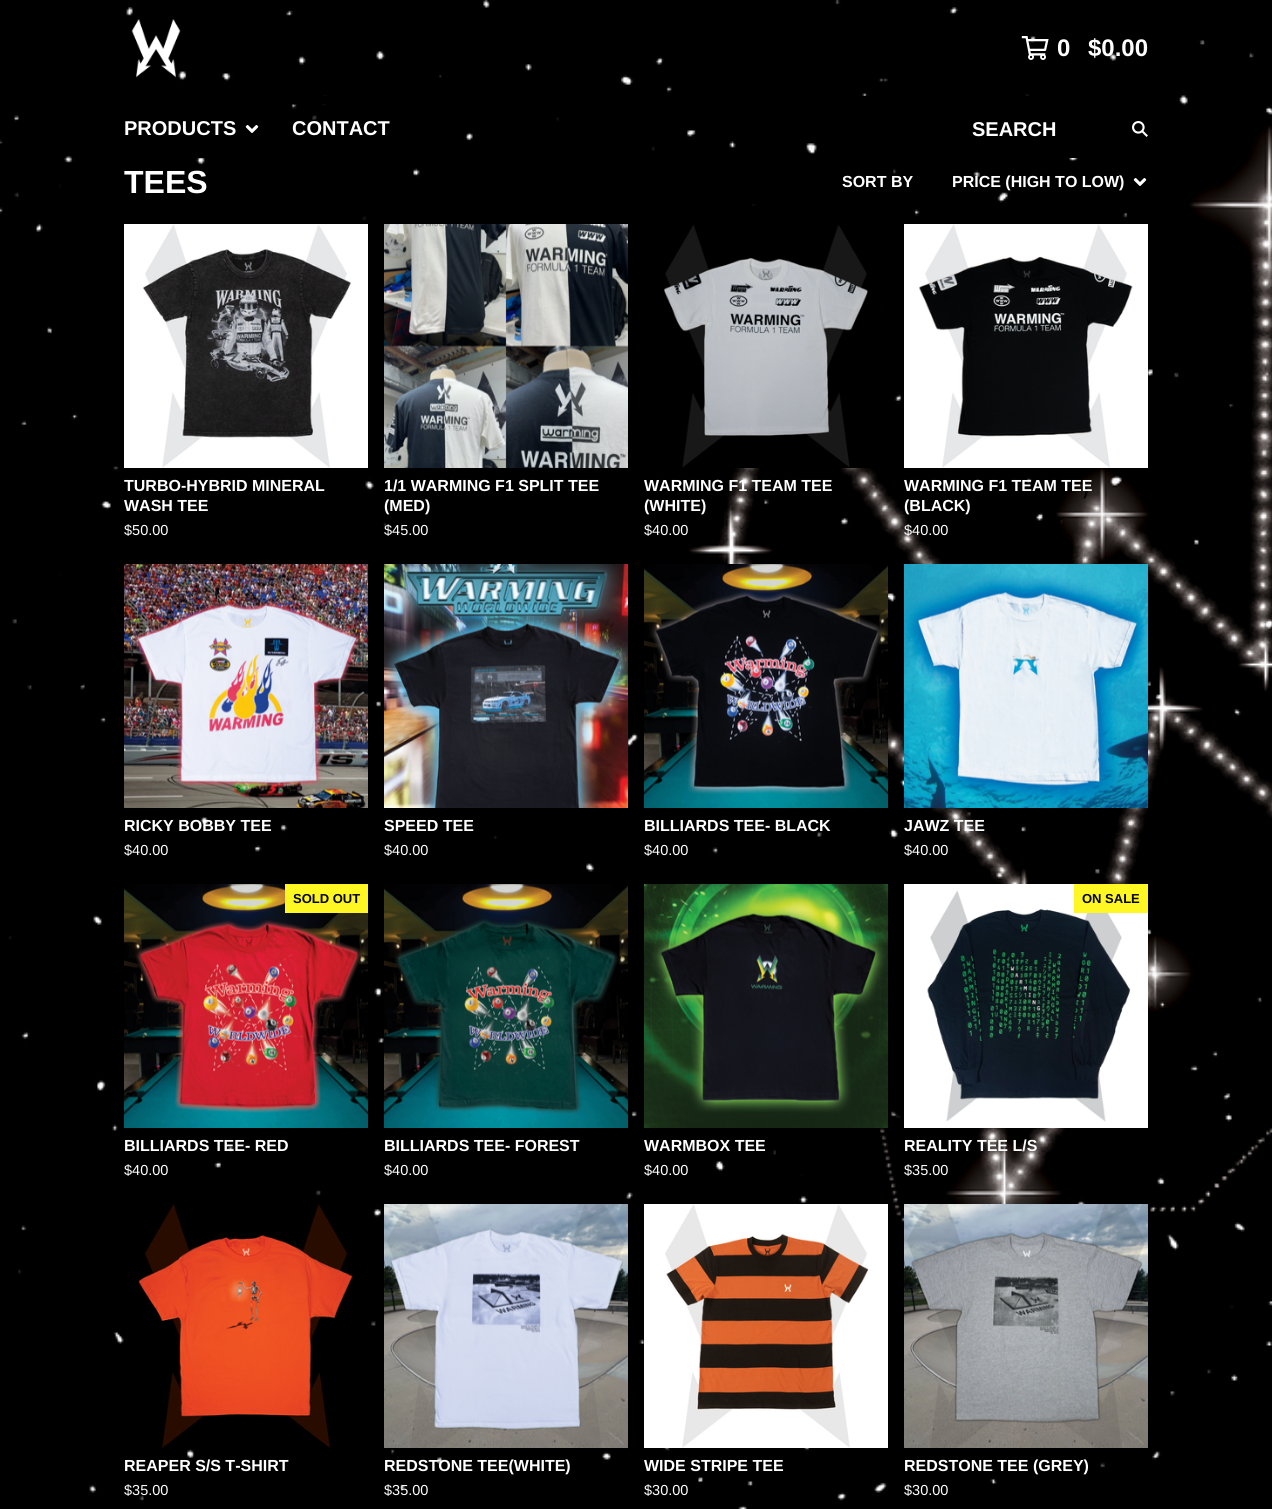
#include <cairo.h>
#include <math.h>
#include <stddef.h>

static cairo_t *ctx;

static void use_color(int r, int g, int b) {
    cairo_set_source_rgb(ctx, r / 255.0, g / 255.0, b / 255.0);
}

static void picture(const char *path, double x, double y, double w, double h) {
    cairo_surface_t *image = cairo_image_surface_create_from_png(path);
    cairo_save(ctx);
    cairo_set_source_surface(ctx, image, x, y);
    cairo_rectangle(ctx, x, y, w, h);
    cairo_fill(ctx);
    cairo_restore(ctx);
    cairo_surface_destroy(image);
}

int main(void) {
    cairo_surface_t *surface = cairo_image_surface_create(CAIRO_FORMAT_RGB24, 1272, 1509);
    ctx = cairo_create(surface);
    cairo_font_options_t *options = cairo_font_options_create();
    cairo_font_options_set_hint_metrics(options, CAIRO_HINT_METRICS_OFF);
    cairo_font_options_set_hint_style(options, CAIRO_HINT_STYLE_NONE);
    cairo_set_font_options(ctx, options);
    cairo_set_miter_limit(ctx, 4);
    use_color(255, 255, 255);
    cairo_paint(ctx);
    picture("img1.png", 0, 0, 1272, 1509);
    use_color(0, 0, 0);
    cairo_rectangle(ctx, 292, 96, 738, 8);
    cairo_fill(ctx);
    picture("img2.png", 131, 19, 50, 59);
    picture("img3.png", 1021, 36, 28, 24);
    cairo_select_font_face(ctx, "Liberation Sans", CAIRO_FONT_SLANT_NORMAL, CAIRO_FONT_WEIGHT_BOLD);
    cairo_set_font_size(ctx, 24);
    use_color(255, 255, 255);
    cairo_move_to(ctx, 1057, 56);
    cairo_show_text(ctx, "0");
    cairo_move_to(ctx, 1088, 56);
    cairo_show_text(ctx, "$0.00");
    use_color(0, 0, 0);
    cairo_rectangle(ctx, 197, 154, 881, 4);
    cairo_fill(ctx);
    cairo_set_font_size(ctx, 20);
    use_color(255, 255, 255);
    cairo_move_to(ctx, 124, 135);
    cairo_show_text(ctx, "PRODUCTS");
    picture("img4.png", 245, 125, 14, 8);
    cairo_move_to(ctx, 292, 135);
    cairo_show_text(ctx, "CONTACT");
    cairo_move_to(ctx, 972, 136);
    cairo_show_text(ctx, "SEARCH");
    picture("img5.png", 1132, 121, 16, 16);
    use_color(0, 0, 0);
    cairo_rectangle(ctx, 751, 206, 5, 2);
    cairo_fill(ctx);
    cairo_set_font_size(ctx, 32);
    use_color(255, 255, 255);
    cairo_move_to(ctx, 124, 193);
    cairo_show_text(ctx, "TEES");
    cairo_set_font_size(ctx, 16);
    cairo_move_to(ctx, 842, 187);
    cairo_show_text(ctx, "SORT BY");
    cairo_move_to(ctx, 952, 187);
    cairo_show_text(ctx, "PRICE (HIGH TO LOW)");
    picture("img4.png", 1133, 178, 14, 8);
    use_color(3, 2, 2);
    cairo_move_to(ctx, 1083, 495);
    cairo_show_text(ctx, ")");
    picture("img6.png", 124, 224, 244, 244);
    use_color(255, 255, 255);
    cairo_move_to(ctx, 124, 491);
    cairo_show_text(ctx, "TURBO-HYBRID MINERAL");
    cairo_move_to(ctx, 124, 511);
    cairo_show_text(ctx, "WASH TEE");
    cairo_select_font_face(ctx, "Liberation Sans", CAIRO_FONT_SLANT_NORMAL, CAIRO_FONT_WEIGHT_NORMAL);
    cairo_set_font_size(ctx, 14.5);
    cairo_move_to(ctx, 124, 535);
    cairo_show_text(ctx, "$50.00");
    picture("img7.png", 384, 224, 244, 244);
    cairo_select_font_face(ctx, "Liberation Sans", CAIRO_FONT_SLANT_NORMAL, CAIRO_FONT_WEIGHT_BOLD);
    cairo_set_font_size(ctx, 16);
    cairo_move_to(ctx, 384, 491);
    cairo_show_text(ctx, "1/1 WARMING F1 SPLIT TEE");
    cairo_move_to(ctx, 384, 511);
    cairo_show_text(ctx, "(MED)");
    cairo_select_font_face(ctx, "Liberation Sans", CAIRO_FONT_SLANT_NORMAL, CAIRO_FONT_WEIGHT_NORMAL);
    cairo_set_font_size(ctx, 14.5);
    cairo_move_to(ctx, 384, 535);
    cairo_show_text(ctx, "$45.00");
    picture("img8.png", 664, 225, 215, 243);
    cairo_select_font_face(ctx, "Liberation Sans", CAIRO_FONT_SLANT_NORMAL, CAIRO_FONT_WEIGHT_BOLD);
    cairo_set_font_size(ctx, 16);
    cairo_move_to(ctx, 644, 491);
    cairo_show_text(ctx, "WARMING F1 TEAM TEE");
    cairo_move_to(ctx, 644, 511);
    cairo_show_text(ctx, "(WHITE)");
    cairo_select_font_face(ctx, "Liberation Sans", CAIRO_FONT_SLANT_NORMAL, CAIRO_FONT_WEIGHT_NORMAL);
    cairo_set_font_size(ctx, 14.5);
    cairo_move_to(ctx, 644, 535);
    cairo_show_text(ctx, "$40.00");
    picture("img9.png", 904, 224, 244, 244);
    cairo_select_font_face(ctx, "Liberation Sans", CAIRO_FONT_SLANT_NORMAL, CAIRO_FONT_WEIGHT_BOLD);
    cairo_set_font_size(ctx, 16);
    cairo_move_to(ctx, 904, 491);
    cairo_show_text(ctx, "WARMING F1 TEAM TEE");
    cairo_move_to(ctx, 904, 511);
    cairo_show_text(ctx, "(BLACK)");
    cairo_select_font_face(ctx, "Liberation Sans", CAIRO_FONT_SLANT_NORMAL, CAIRO_FONT_WEIGHT_NORMAL);
    cairo_set_font_size(ctx, 14.5);
    cairo_move_to(ctx, 904, 535);
    cairo_show_text(ctx, "$40.00");
    picture("img10.png", 124, 564, 244, 244);
    cairo_select_font_face(ctx, "Liberation Sans", CAIRO_FONT_SLANT_NORMAL, CAIRO_FONT_WEIGHT_BOLD);
    cairo_set_font_size(ctx, 16);
    cairo_move_to(ctx, 124, 831);
    cairo_show_text(ctx, "RICKY BOBBY TEE");
    cairo_select_font_face(ctx, "Liberation Sans", CAIRO_FONT_SLANT_NORMAL, CAIRO_FONT_WEIGHT_NORMAL);
    cairo_set_font_size(ctx, 14.5);
    cairo_move_to(ctx, 124, 855);
    cairo_show_text(ctx, "$40.00");
    picture("img11.png", 384, 564, 244, 244);
    cairo_select_font_face(ctx, "Liberation Sans", CAIRO_FONT_SLANT_NORMAL, CAIRO_FONT_WEIGHT_BOLD);
    cairo_set_font_size(ctx, 16);
    cairo_move_to(ctx, 384, 831);
    cairo_show_text(ctx, "SPEED TEE");
    cairo_select_font_face(ctx, "Liberation Sans", CAIRO_FONT_SLANT_NORMAL, CAIRO_FONT_WEIGHT_NORMAL);
    cairo_set_font_size(ctx, 14.5);
    cairo_move_to(ctx, 384, 855);
    cairo_show_text(ctx, "$40.00");
    picture("img12.png", 644, 564, 244, 244);
    cairo_select_font_face(ctx, "Liberation Sans", CAIRO_FONT_SLANT_NORMAL, CAIRO_FONT_WEIGHT_BOLD);
    cairo_set_font_size(ctx, 16);
    cairo_move_to(ctx, 644, 831);
    cairo_show_text(ctx, "BILLIARDS TEE- BLACK");
    cairo_select_font_face(ctx, "Liberation Sans", CAIRO_FONT_SLANT_NORMAL, CAIRO_FONT_WEIGHT_NORMAL);
    cairo_set_font_size(ctx, 14.5);
    cairo_move_to(ctx, 644, 855);
    cairo_show_text(ctx, "$40.00");
    picture("img13.png", 904, 564, 244, 244);
    cairo_select_font_face(ctx, "Liberation Sans", CAIRO_FONT_SLANT_NORMAL, CAIRO_FONT_WEIGHT_BOLD);
    cairo_set_font_size(ctx, 16);
    cairo_move_to(ctx, 904, 831);
    cairo_show_text(ctx, "JAWZ TEE");
    cairo_select_font_face(ctx, "Liberation Sans", CAIRO_FONT_SLANT_NORMAL, CAIRO_FONT_WEIGHT_NORMAL);
    cairo_set_font_size(ctx, 14.5);
    cairo_move_to(ctx, 904, 855);
    cairo_show_text(ctx, "$40.00");
    picture("img14.png", 124, 884, 244, 244);
    use_color(255, 247, 36);
    cairo_rectangle(ctx, 285, 884, 83, 29);
    cairo_fill(ctx);
    cairo_select_font_face(ctx, "Liberation Sans", CAIRO_FONT_SLANT_NORMAL, CAIRO_FONT_WEIGHT_BOLD);
    cairo_set_font_size(ctx, 13);
    use_color(3, 2, 2);
    cairo_move_to(ctx, 293, 903);
    cairo_show_text(ctx, "SOLD OUT");
    cairo_set_font_size(ctx, 16);
    use_color(255, 255, 255);
    cairo_move_to(ctx, 124, 1151);
    cairo_show_text(ctx, "BILLIARDS TEE- RED");
    cairo_select_font_face(ctx, "Liberation Sans", CAIRO_FONT_SLANT_NORMAL, CAIRO_FONT_WEIGHT_NORMAL);
    cairo_set_font_size(ctx, 14.5);
    cairo_move_to(ctx, 124, 1175);
    cairo_show_text(ctx, "$40.00");
    picture("img15.png", 384, 884, 244, 244);
    cairo_select_font_face(ctx, "Liberation Sans", CAIRO_FONT_SLANT_NORMAL, CAIRO_FONT_WEIGHT_BOLD);
    cairo_set_font_size(ctx, 16);
    cairo_move_to(ctx, 384, 1151);
    cairo_show_text(ctx, "BILLIARDS TEE- FOREST");
    cairo_select_font_face(ctx, "Liberation Sans", CAIRO_FONT_SLANT_NORMAL, CAIRO_FONT_WEIGHT_NORMAL);
    cairo_set_font_size(ctx, 14.5);
    cairo_move_to(ctx, 384, 1175);
    cairo_show_text(ctx, "$40.00");
    picture("img16.png", 644, 884, 244, 244);
    cairo_select_font_face(ctx, "Liberation Sans", CAIRO_FONT_SLANT_NORMAL, CAIRO_FONT_WEIGHT_BOLD);
    cairo_set_font_size(ctx, 16);
    cairo_move_to(ctx, 644, 1151);
    cairo_show_text(ctx, "WARMBOX TEE");
    cairo_select_font_face(ctx, "Liberation Sans", CAIRO_FONT_SLANT_NORMAL, CAIRO_FONT_WEIGHT_NORMAL);
    cairo_set_font_size(ctx, 14.5);
    cairo_move_to(ctx, 644, 1175);
    cairo_show_text(ctx, "$40.00");
    picture("img17.png", 904, 884, 244, 244);
    use_color(255, 247, 36);
    cairo_rectangle(ctx, 1074, 884, 74, 29);
    cairo_fill(ctx);
    cairo_select_font_face(ctx, "Liberation Sans", CAIRO_FONT_SLANT_NORMAL, CAIRO_FONT_WEIGHT_BOLD);
    cairo_set_font_size(ctx, 13);
    use_color(3, 2, 2);
    cairo_move_to(ctx, 1082, 903);
    cairo_show_text(ctx, "ON SALE");
    cairo_set_font_size(ctx, 16);
    use_color(255, 255, 255);
    cairo_move_to(ctx, 904, 1151);
    cairo_show_text(ctx, "REALITY TEE L/S");
    cairo_select_font_face(ctx, "Liberation Sans", CAIRO_FONT_SLANT_NORMAL, CAIRO_FONT_WEIGHT_NORMAL);
    cairo_set_font_size(ctx, 14.5);
    cairo_move_to(ctx, 904, 1175);
    cairo_show_text(ctx, "$35.00");
    picture("img18.png", 138, 1204, 227, 244);
    cairo_select_font_face(ctx, "Liberation Sans", CAIRO_FONT_SLANT_NORMAL, CAIRO_FONT_WEIGHT_BOLD);
    cairo_set_font_size(ctx, 16);
    cairo_move_to(ctx, 124, 1471);
    cairo_show_text(ctx, "REAPER S/S T-SHIRT");
    cairo_select_font_face(ctx, "Liberation Sans", CAIRO_FONT_SLANT_NORMAL, CAIRO_FONT_WEIGHT_NORMAL);
    cairo_set_font_size(ctx, 14.5);
    cairo_move_to(ctx, 124, 1495);
    cairo_show_text(ctx, "$35.00");
    picture("img19.png", 384, 1204, 244, 244);
    cairo_select_font_face(ctx, "Liberation Sans", CAIRO_FONT_SLANT_NORMAL, CAIRO_FONT_WEIGHT_BOLD);
    cairo_set_font_size(ctx, 16);
    cairo_move_to(ctx, 384, 1471);
    cairo_show_text(ctx, "REDSTONE TEE(WHITE)");
    cairo_select_font_face(ctx, "Liberation Sans", CAIRO_FONT_SLANT_NORMAL, CAIRO_FONT_WEIGHT_NORMAL);
    cairo_set_font_size(ctx, 14.5);
    cairo_move_to(ctx, 384, 1495);
    cairo_show_text(ctx, "$35.00");
    picture("img20.png", 644, 1204, 244, 244);
    cairo_select_font_face(ctx, "Liberation Sans", CAIRO_FONT_SLANT_NORMAL, CAIRO_FONT_WEIGHT_BOLD);
    cairo_set_font_size(ctx, 16);
    cairo_move_to(ctx, 644, 1471);
    cairo_show_text(ctx, "WIDE STRIPE TEE");
    cairo_select_font_face(ctx, "Liberation Sans", CAIRO_FONT_SLANT_NORMAL, CAIRO_FONT_WEIGHT_NORMAL);
    cairo_set_font_size(ctx, 14.5);
    cairo_move_to(ctx, 644, 1495);
    cairo_show_text(ctx, "$30.00");
    picture("img21.png", 904, 1204, 244, 244);
    cairo_select_font_face(ctx, "Liberation Sans", CAIRO_FONT_SLANT_NORMAL, CAIRO_FONT_WEIGHT_BOLD);
    cairo_set_font_size(ctx, 16);
    cairo_move_to(ctx, 904, 1471);
    cairo_show_text(ctx, "REDSTONE TEE (GREY)");
    cairo_select_font_face(ctx, "Liberation Sans", CAIRO_FONT_SLANT_NORMAL, CAIRO_FONT_WEIGHT_NORMAL);
    cairo_set_font_size(ctx, 14.5);
    cairo_move_to(ctx, 904, 1495);
    cairo_show_text(ctx, "$30.00");
    cairo_surface_write_to_png(surface, "result.png");
    cairo_font_options_destroy(options);
    cairo_destroy(ctx);
    cairo_surface_destroy(surface);
    return 0;
}
